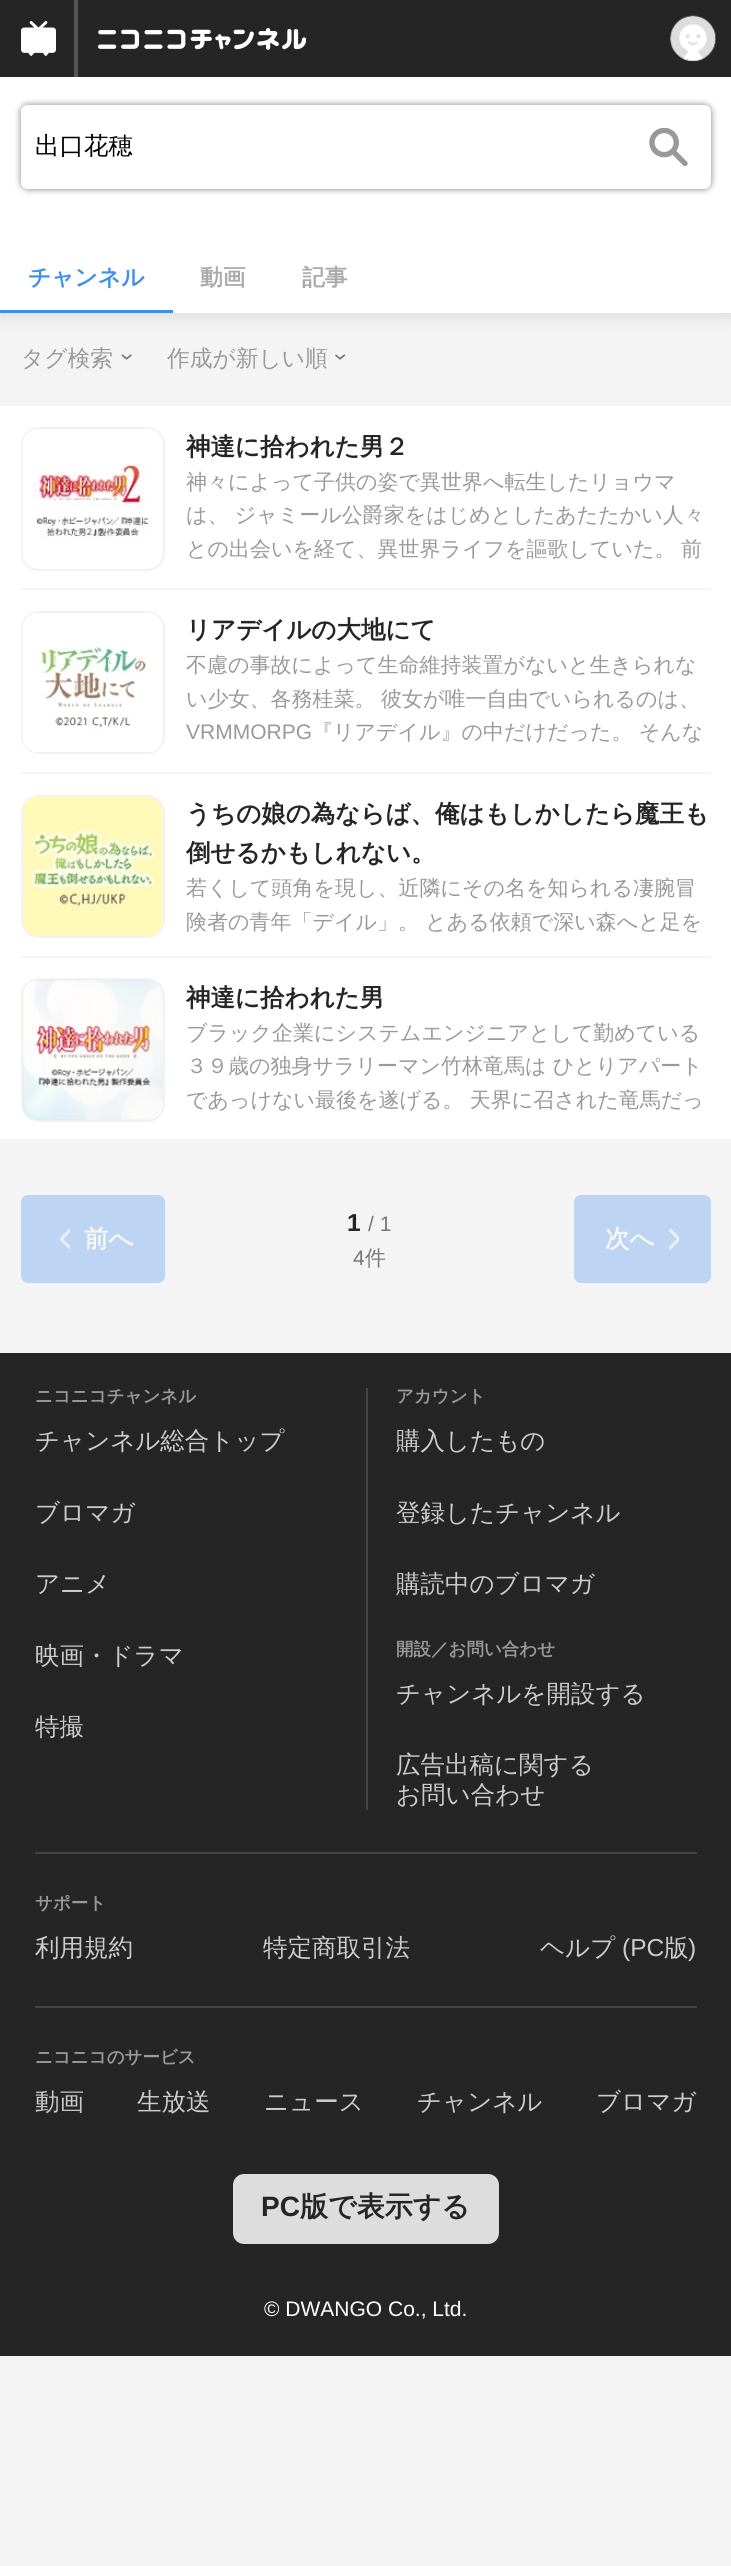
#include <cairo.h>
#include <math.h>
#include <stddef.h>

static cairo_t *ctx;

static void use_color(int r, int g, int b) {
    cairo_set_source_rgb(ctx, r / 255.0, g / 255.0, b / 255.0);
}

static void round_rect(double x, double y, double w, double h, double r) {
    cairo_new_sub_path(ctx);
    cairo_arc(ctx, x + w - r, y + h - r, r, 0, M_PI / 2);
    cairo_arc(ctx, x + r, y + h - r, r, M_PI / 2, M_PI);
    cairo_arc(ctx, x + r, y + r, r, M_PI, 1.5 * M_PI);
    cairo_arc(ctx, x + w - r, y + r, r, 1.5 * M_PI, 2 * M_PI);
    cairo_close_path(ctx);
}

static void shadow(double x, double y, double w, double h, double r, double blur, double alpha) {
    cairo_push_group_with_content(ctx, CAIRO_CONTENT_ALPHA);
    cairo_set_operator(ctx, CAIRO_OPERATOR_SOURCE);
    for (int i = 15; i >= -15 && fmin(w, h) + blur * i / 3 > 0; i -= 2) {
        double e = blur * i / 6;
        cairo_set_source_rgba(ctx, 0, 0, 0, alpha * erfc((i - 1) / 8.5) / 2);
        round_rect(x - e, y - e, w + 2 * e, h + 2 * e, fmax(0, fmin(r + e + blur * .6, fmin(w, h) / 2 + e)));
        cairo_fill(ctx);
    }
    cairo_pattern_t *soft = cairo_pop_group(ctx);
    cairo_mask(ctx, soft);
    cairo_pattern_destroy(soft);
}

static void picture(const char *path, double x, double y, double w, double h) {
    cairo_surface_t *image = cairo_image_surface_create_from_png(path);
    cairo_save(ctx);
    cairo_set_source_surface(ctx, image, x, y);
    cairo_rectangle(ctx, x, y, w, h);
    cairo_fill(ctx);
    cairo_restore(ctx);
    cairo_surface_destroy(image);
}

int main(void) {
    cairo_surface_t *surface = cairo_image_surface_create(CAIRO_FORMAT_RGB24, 731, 2566);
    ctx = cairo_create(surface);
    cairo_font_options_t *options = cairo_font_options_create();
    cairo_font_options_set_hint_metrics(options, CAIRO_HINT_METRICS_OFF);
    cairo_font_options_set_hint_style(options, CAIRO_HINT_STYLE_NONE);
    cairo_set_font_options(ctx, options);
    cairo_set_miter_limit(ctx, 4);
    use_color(244, 244, 244);
    cairo_paint(ctx);
    use_color(125, 125, 125);
    shadow(0, 81, 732, 236, 0, 9, 0.2);
    use_color(37, 37, 37);
    cairo_rectangle(ctx, 0, 0, 731, 77);
    cairo_fill(ctx);
    picture("img1.png", 21, 21, 35, 35);
    use_color(85, 85, 85);
    cairo_rectangle(ctx, 74, 0, 4, 77);
    cairo_fill(ctx);
    picture("img2.png", 98, 28, 208, 22);
    picture("img3.png", 670, 15, 47, 47);
    use_color(255, 255, 255);
    cairo_rectangle(ctx, 0, 77, 731, 236);
    cairo_fill(ctx);
    use_color(0, 0, 0);
    shadow(21, 105, 690, 84, 7, 3.5, 0.5);
    use_color(255, 255, 255);
    round_rect(21, 105, 690, 84, 7);
    cairo_fill(ctx);
    cairo_new_path(ctx);
    cairo_move_to(ctx, 28, 105);
    cairo_line_to(ctx, 627, 105);
    cairo_line_to(ctx, 627, 189);
    cairo_line_to(ctx, 28, 189);
    cairo_curve_to(ctx, 24, 189, 21, 186, 21, 182);
    cairo_line_to(ctx, 21, 112);
    cairo_curve_to(ctx, 21, 108, 24, 105, 28, 105);
    cairo_close_path(ctx);
    cairo_fill(ctx);
    cairo_select_font_face(ctx, "WenQuanYi Zen Hei Medium", CAIRO_FONT_SLANT_NORMAL, CAIRO_FONT_WEIGHT_NORMAL);
    cairo_set_font_size(ctx, 24.5);
    use_color(0, 0, 0);
    cairo_move_to(ctx, 35, 154);
    cairo_show_text(ctx, "出口花穂");
    picture("img4.png", 649, 128, 39, 38);
    use_color(62, 142, 237);
    cairo_rectangle(ctx, 0, 310, 173, 3);
    cairo_fill(ctx);
    cairo_select_font_face(ctx, "WenQuanYi Zen Hei", CAIRO_FONT_SLANT_NORMAL, CAIRO_FONT_WEIGHT_BOLD);
    cairo_set_font_size(ctx, 22.75);
    cairo_move_to(ctx, 28, 285);
    cairo_show_text(ctx, "チャンネル");
    use_color(170, 170, 170);
    cairo_move_to(ctx, 200, 285);
    cairo_show_text(ctx, "動画");
    cairo_move_to(ctx, 302, 285);
    cairo_show_text(ctx, "記事");
    cairo_select_font_face(ctx, "WenQuanYi Zen Hei Medium", CAIRO_FONT_SLANT_NORMAL, CAIRO_FONT_WEIGHT_NORMAL);
    use_color(153, 153, 153);
    cairo_move_to(ctx, 21, 366);
    cairo_show_text(ctx, "タグ検索");
    picture("img5.png", 121, 354, 11, 6);
    cairo_move_to(ctx, 167, 366);
    cairo_show_text(ctx, "作成が新しい順");
    picture("img6.png", 335, 354, 11, 6);
    use_color(255, 255, 255);
    cairo_rectangle(ctx, 0, 406, 731, 733);
    cairo_fill(ctx);
    round_rect(22, 428, 142, 142, 17);
    use_color(242, 242, 242);
    cairo_stroke(ctx);
    picture("img7.png", 23, 429, 138, 136);
    cairo_select_font_face(ctx, "WenQuanYi Zen Hei", CAIRO_FONT_SLANT_NORMAL, CAIRO_FONT_WEIGHT_BOLD);
    cairo_set_font_size(ctx, 24.5);
    use_color(37, 37, 37);
    cairo_move_to(ctx, 186, 455);
    cairo_show_text(ctx, "神達に拾われた男２");
    cairo_select_font_face(ctx, "WenQuanYi Zen Hei Medium", CAIRO_FONT_SLANT_NORMAL, CAIRO_FONT_WEIGHT_NORMAL);
    cairo_set_font_size(ctx, 21);
    use_color(153, 153, 153);
    cairo_move_to(ctx, 186, 489);
    cairo_show_text(ctx, "神々によって子供の姿で異世界へ転生したリョウマ");
    cairo_move_to(ctx, 186, 522);
    cairo_show_text(ctx, "は、 ジャミール公爵家をはじめとしたあたたかい人々");
    cairo_move_to(ctx, 186, 556);
    cairo_show_text(ctx, "との出会いを経て、異世界ライフを謳歌していた。");
    cairo_move_to(ctx, 681, 556);
    cairo_show_text(ctx, "前");
    use_color(245, 245, 245);
    cairo_rectangle(ctx, 21, 588, 690, 2);
    cairo_fill(ctx);
    round_rect(22, 612, 142, 141, 17);
    use_color(242, 242, 242);
    cairo_stroke(ctx);
    picture("img8.png", 23, 613, 138, 139);
    cairo_select_font_face(ctx, "WenQuanYi Zen Hei", CAIRO_FONT_SLANT_NORMAL, CAIRO_FONT_WEIGHT_BOLD);
    cairo_set_font_size(ctx, 24.5);
    use_color(37, 37, 37);
    cairo_move_to(ctx, 186, 638);
    cairo_show_text(ctx, "リアデイルの大地にて");
    cairo_select_font_face(ctx, "WenQuanYi Zen Hei Medium", CAIRO_FONT_SLANT_NORMAL, CAIRO_FONT_WEIGHT_NORMAL);
    cairo_set_font_size(ctx, 21);
    use_color(153, 153, 153);
    cairo_move_to(ctx, 186, 672);
    cairo_show_text(ctx, "不慮の事故によって生命維持装置がないと生きられな");
    cairo_move_to(ctx, 186, 706);
    cairo_show_text(ctx, "い少女、各務桂菜。");
    cairo_move_to(ctx, 381, 706);
    cairo_show_text(ctx, "彼女が唯一自由でいられるのは、");
    cairo_select_font_face(ctx, "Liberation Sans", CAIRO_FONT_SLANT_NORMAL, CAIRO_FONT_WEIGHT_NORMAL);
    cairo_move_to(ctx, 186, 739);
    cairo_show_text(ctx, "VRMMORPG");
    cairo_select_font_face(ctx, "WenQuanYi Zen Hei Medium", CAIRO_FONT_SLANT_NORMAL, CAIRO_FONT_WEIGHT_NORMAL);
    cairo_move_to(ctx, 312, 739);
    cairo_show_text(ctx, "『リアデイル』の中だけだった。 そんな");
    use_color(245, 245, 245);
    cairo_rectangle(ctx, 21, 772, 690, 2);
    cairo_fill(ctx);
    round_rect(22, 796, 142, 141, 17);
    use_color(242, 242, 242);
    cairo_stroke(ctx);
    picture("img9.png", 23, 796, 140, 140);
    cairo_select_font_face(ctx, "WenQuanYi Zen Hei", CAIRO_FONT_SLANT_NORMAL, CAIRO_FONT_WEIGHT_BOLD);
    cairo_set_font_size(ctx, 24.5);
    use_color(37, 37, 37);
    cairo_move_to(ctx, 186, 822);
    cairo_show_text(ctx, "うちの娘の為ならば、俺はもしかしたら魔王も");
    cairo_move_to(ctx, 186, 861);
    cairo_show_text(ctx, "倒せるかもしれない。");
    cairo_select_font_face(ctx, "WenQuanYi Zen Hei Medium", CAIRO_FONT_SLANT_NORMAL, CAIRO_FONT_WEIGHT_NORMAL);
    cairo_set_font_size(ctx, 21);
    use_color(153, 153, 153);
    cairo_move_to(ctx, 186, 895);
    cairo_show_text(ctx, "若くして頭角を現し、近隣にその名を知られる凄腕冒");
    cairo_move_to(ctx, 186, 929);
    cairo_show_text(ctx, "険者の青年「デイル」。 とある依頼で深い森へと足を");
    use_color(245, 245, 245);
    cairo_rectangle(ctx, 21, 956, 690, 2);
    cairo_fill(ctx);
    round_rect(22, 979, 142, 142, 17);
    use_color(242, 242, 242);
    cairo_stroke(ctx);
    picture("img10.png", 23, 980, 140, 140);
    cairo_select_font_face(ctx, "WenQuanYi Zen Hei", CAIRO_FONT_SLANT_NORMAL, CAIRO_FONT_WEIGHT_BOLD);
    cairo_set_font_size(ctx, 24.5);
    use_color(37, 37, 37);
    cairo_move_to(ctx, 186, 1006);
    cairo_show_text(ctx, "神達に拾われた男");
    cairo_select_font_face(ctx, "WenQuanYi Zen Hei Medium", CAIRO_FONT_SLANT_NORMAL, CAIRO_FONT_WEIGHT_NORMAL);
    cairo_set_font_size(ctx, 21);
    use_color(153, 153, 153);
    cairo_move_to(ctx, 186, 1040);
    cairo_show_text(ctx, "ブラック企業にシステムエンジニアとして勤めている");
    cairo_move_to(ctx, 186, 1073);
    cairo_show_text(ctx, "３９歳の独身サラリーマン竹林竜馬は ひとりアパート");
    cairo_move_to(ctx, 186, 1107);
    cairo_show_text(ctx, "であっけない最後を遂げる。 天界に召された竜馬だっ");
    use_color(189, 213, 242);
    round_rect(23, 1197, 140, 84, 5);
    cairo_fill_preserve(ctx);
    cairo_set_line_width(ctx, 4);
    cairo_stroke(ctx);
    cairo_save(ctx);
    cairo_rectangle(ctx, 60, 1229, 10, 21);
    cairo_clip(ctx);
    cairo_new_path(ctx);
    cairo_move_to(ctx, 70, 1248);
    cairo_line_to(ctx, 61, 1239);
    cairo_line_to(ctx, 70, 1230);
    use_color(235, 240, 246);
    cairo_set_line_width(ctx, 3);
    cairo_set_line_cap(ctx, CAIRO_LINE_CAP_ROUND);
    cairo_set_line_join(ctx, CAIRO_LINE_JOIN_ROUND);
    cairo_stroke(ctx);
    cairo_restore(ctx);
    cairo_select_font_face(ctx, "WenQuanYi Zen Hei", CAIRO_FONT_SLANT_NORMAL, CAIRO_FONT_WEIGHT_BOLD);
    cairo_set_font_size(ctx, 24.5);
    use_color(247, 247, 247);
    cairo_move_to(ctx, 84, 1247);
    cairo_show_text(ctx, "前へ");
    cairo_select_font_face(ctx, "Liberation Sans", CAIRO_FONT_SLANT_NORMAL, CAIRO_FONT_WEIGHT_BOLD);
    use_color(37, 37, 37);
    cairo_move_to(ctx, 347, 1231);
    cairo_show_text(ctx, "1");
    cairo_select_font_face(ctx, "Liberation Sans", CAIRO_FONT_SLANT_NORMAL, CAIRO_FONT_WEIGHT_NORMAL);
    cairo_set_font_size(ctx, 21);
    use_color(119, 119, 119);
    cairo_move_to(ctx, 368, 1231);
    cairo_show_text(ctx, "/ 1");
    cairo_move_to(ctx, 353, 1265);
    cairo_show_text(ctx, "4");
    cairo_select_font_face(ctx, "WenQuanYi Zen Hei Medium", CAIRO_FONT_SLANT_NORMAL, CAIRO_FONT_WEIGHT_NORMAL);
    cairo_move_to(ctx, 365, 1265);
    cairo_show_text(ctx, "件");
    use_color(189, 213, 242);
    round_rect(576, 1197, 133, 84, 5);
    cairo_fill_preserve(ctx);
    cairo_stroke(ctx);
    cairo_select_font_face(ctx, "WenQuanYi Zen Hei", CAIRO_FONT_SLANT_NORMAL, CAIRO_FONT_WEIGHT_BOLD);
    cairo_set_font_size(ctx, 24.5);
    use_color(247, 247, 247);
    cairo_move_to(ctx, 605, 1247);
    cairo_show_text(ctx, "次へ");
    cairo_save(ctx);
    cairo_rectangle(ctx, 669, 1229, 10, 21);
    cairo_clip(ctx);
    cairo_new_path(ctx);
    cairo_move_to(ctx, 670, 1248);
    cairo_line_to(ctx, 679, 1239);
    cairo_line_to(ctx, 670, 1230);
    use_color(235, 240, 246);
    cairo_set_line_width(ctx, 3);
    cairo_set_line_cap(ctx, CAIRO_LINE_CAP_ROUND);
    cairo_set_line_join(ctx, CAIRO_LINE_JOIN_ROUND);
    cairo_stroke(ctx);
    cairo_restore(ctx);
    use_color(37, 37, 37);
    cairo_rectangle(ctx, 0, 1353, 731, 1003);
    cairo_fill(ctx);
    cairo_set_font_size(ctx, 17.5);
    use_color(153, 153, 153);
    cairo_move_to(ctx, 35, 1402);
    cairo_show_text(ctx, "ニコニコチャンネル");
    cairo_select_font_face(ctx, "WenQuanYi Zen Hei Medium", CAIRO_FONT_SLANT_NORMAL, CAIRO_FONT_WEIGHT_NORMAL);
    cairo_set_font_size(ctx, 24.5);
    use_color(204, 204, 204);
    cairo_move_to(ctx, 35, 1449);
    cairo_show_text(ctx, "チャンネル総合トップ");
    cairo_move_to(ctx, 35, 1521);
    cairo_show_text(ctx, "ブロマガ");
    cairo_move_to(ctx, 35, 1592);
    cairo_show_text(ctx, "アニメ");
    cairo_move_to(ctx, 35, 1664);
    cairo_show_text(ctx, "映画・ドラマ");
    cairo_move_to(ctx, 35, 1735);
    cairo_show_text(ctx, "特撮");
    use_color(68, 68, 68);
    cairo_rectangle(ctx, 366, 1388, 2, 422);
    cairo_fill(ctx);
    cairo_select_font_face(ctx, "WenQuanYi Zen Hei", CAIRO_FONT_SLANT_NORMAL, CAIRO_FONT_WEIGHT_BOLD);
    cairo_set_font_size(ctx, 17.5);
    use_color(153, 153, 153);
    cairo_move_to(ctx, 396, 1402);
    cairo_show_text(ctx, "アカウント");
    cairo_select_font_face(ctx, "WenQuanYi Zen Hei Medium", CAIRO_FONT_SLANT_NORMAL, CAIRO_FONT_WEIGHT_NORMAL);
    cairo_set_font_size(ctx, 24.5);
    use_color(204, 204, 204);
    cairo_move_to(ctx, 396, 1449);
    cairo_show_text(ctx, "購入したもの");
    cairo_move_to(ctx, 396, 1521);
    cairo_show_text(ctx, "登録したチャンネル");
    cairo_move_to(ctx, 396, 1592);
    cairo_show_text(ctx, "購読中のブロマガ");
    cairo_select_font_face(ctx, "WenQuanYi Zen Hei", CAIRO_FONT_SLANT_NORMAL, CAIRO_FONT_WEIGHT_BOLD);
    cairo_set_font_size(ctx, 17.5);
    use_color(153, 153, 153);
    cairo_move_to(ctx, 396, 1655);
    cairo_show_text(ctx, "開設／お問い合わせ");
    cairo_select_font_face(ctx, "WenQuanYi Zen Hei Medium", CAIRO_FONT_SLANT_NORMAL, CAIRO_FONT_WEIGHT_NORMAL);
    cairo_set_font_size(ctx, 24.5);
    use_color(204, 204, 204);
    cairo_move_to(ctx, 396, 1702);
    cairo_show_text(ctx, "チャンネルを開設する");
    cairo_move_to(ctx, 396, 1773);
    cairo_show_text(ctx, "広告出稿に関する");
    cairo_move_to(ctx, 396, 1803);
    cairo_show_text(ctx, "お問い合わせ");
    use_color(68, 68, 68);
    cairo_rectangle(ctx, 35, 1852, 662, 2);
    cairo_fill(ctx);
    cairo_select_font_face(ctx, "WenQuanYi Zen Hei", CAIRO_FONT_SLANT_NORMAL, CAIRO_FONT_WEIGHT_BOLD);
    cairo_set_font_size(ctx, 17.5);
    use_color(153, 153, 153);
    cairo_move_to(ctx, 35, 1909);
    cairo_show_text(ctx, "サポート");
    cairo_select_font_face(ctx, "WenQuanYi Zen Hei Medium", CAIRO_FONT_SLANT_NORMAL, CAIRO_FONT_WEIGHT_NORMAL);
    cairo_set_font_size(ctx, 24.5);
    use_color(204, 204, 204);
    cairo_move_to(ctx, 35, 1956);
    cairo_show_text(ctx, "利用規約");
    cairo_move_to(ctx, 263, 1956);
    cairo_show_text(ctx, "特定商取引法");
    cairo_move_to(ctx, 540, 1956);
    cairo_show_text(ctx, "ヘルプ");
    cairo_select_font_face(ctx, "Liberation Sans", CAIRO_FONT_SLANT_NORMAL, CAIRO_FONT_WEIGHT_NORMAL);
    cairo_move_to(ctx, 622, 1956);
    cairo_show_text(ctx, "(PC");
    cairo_select_font_face(ctx, "WenQuanYi Zen Hei Medium", CAIRO_FONT_SLANT_NORMAL, CAIRO_FONT_WEIGHT_NORMAL);
    cairo_move_to(ctx, 664, 1956);
    cairo_show_text(ctx, "版");
    cairo_select_font_face(ctx, "Liberation Sans", CAIRO_FONT_SLANT_NORMAL, CAIRO_FONT_WEIGHT_NORMAL);
    cairo_move_to(ctx, 688, 1956);
    cairo_show_text(ctx, ")");
    use_color(68, 68, 68);
    cairo_rectangle(ctx, 35, 2006, 662, 2);
    cairo_fill(ctx);
    cairo_select_font_face(ctx, "WenQuanYi Zen Hei", CAIRO_FONT_SLANT_NORMAL, CAIRO_FONT_WEIGHT_BOLD);
    cairo_set_font_size(ctx, 17.5);
    use_color(153, 153, 153);
    cairo_move_to(ctx, 35, 2063);
    cairo_show_text(ctx, "ニコニコのサービス");
    cairo_select_font_face(ctx, "WenQuanYi Zen Hei Medium", CAIRO_FONT_SLANT_NORMAL, CAIRO_FONT_WEIGHT_NORMAL);
    cairo_set_font_size(ctx, 24.5);
    use_color(204, 204, 204);
    cairo_move_to(ctx, 35, 2110);
    cairo_show_text(ctx, "動画");
    cairo_move_to(ctx, 137, 2110);
    cairo_show_text(ctx, "生放送");
    cairo_move_to(ctx, 264, 2110);
    cairo_show_text(ctx, "ニュース");
    cairo_move_to(ctx, 417, 2110);
    cairo_show_text(ctx, "チャンネル");
    cairo_move_to(ctx, 596, 2110);
    cairo_show_text(ctx, "ブロマガ");
    use_color(221, 221, 221);
    round_rect(233, 2174, 266, 70, 11);
    cairo_fill(ctx);
    cairo_select_font_face(ctx, "Liberation Sans", CAIRO_FONT_SLANT_NORMAL, CAIRO_FONT_WEIGHT_BOLD);
    cairo_set_font_size(ctx, 28);
    use_color(37, 37, 37);
    cairo_move_to(ctx, 261, 2216);
    cairo_show_text(ctx, "PC");
    cairo_select_font_face(ctx, "WenQuanYi Zen Hei", CAIRO_FONT_SLANT_NORMAL, CAIRO_FONT_WEIGHT_BOLD);
    cairo_move_to(ctx, 300, 2216);
    cairo_show_text(ctx, "版で表示する");
    cairo_select_font_face(ctx, "Liberation Sans", CAIRO_FONT_SLANT_NORMAL, CAIRO_FONT_WEIGHT_NORMAL);
    cairo_set_font_size(ctx, 21);
    use_color(255, 255, 255);
    cairo_move_to(ctx, 264, 2316);
    cairo_show_text(ctx, "© DWANGO Co., Ltd.");
    cairo_surface_write_to_png(surface, "result.png");
    cairo_font_options_destroy(options);
    cairo_destroy(ctx);
    cairo_surface_destroy(surface);
    return 0;
}
